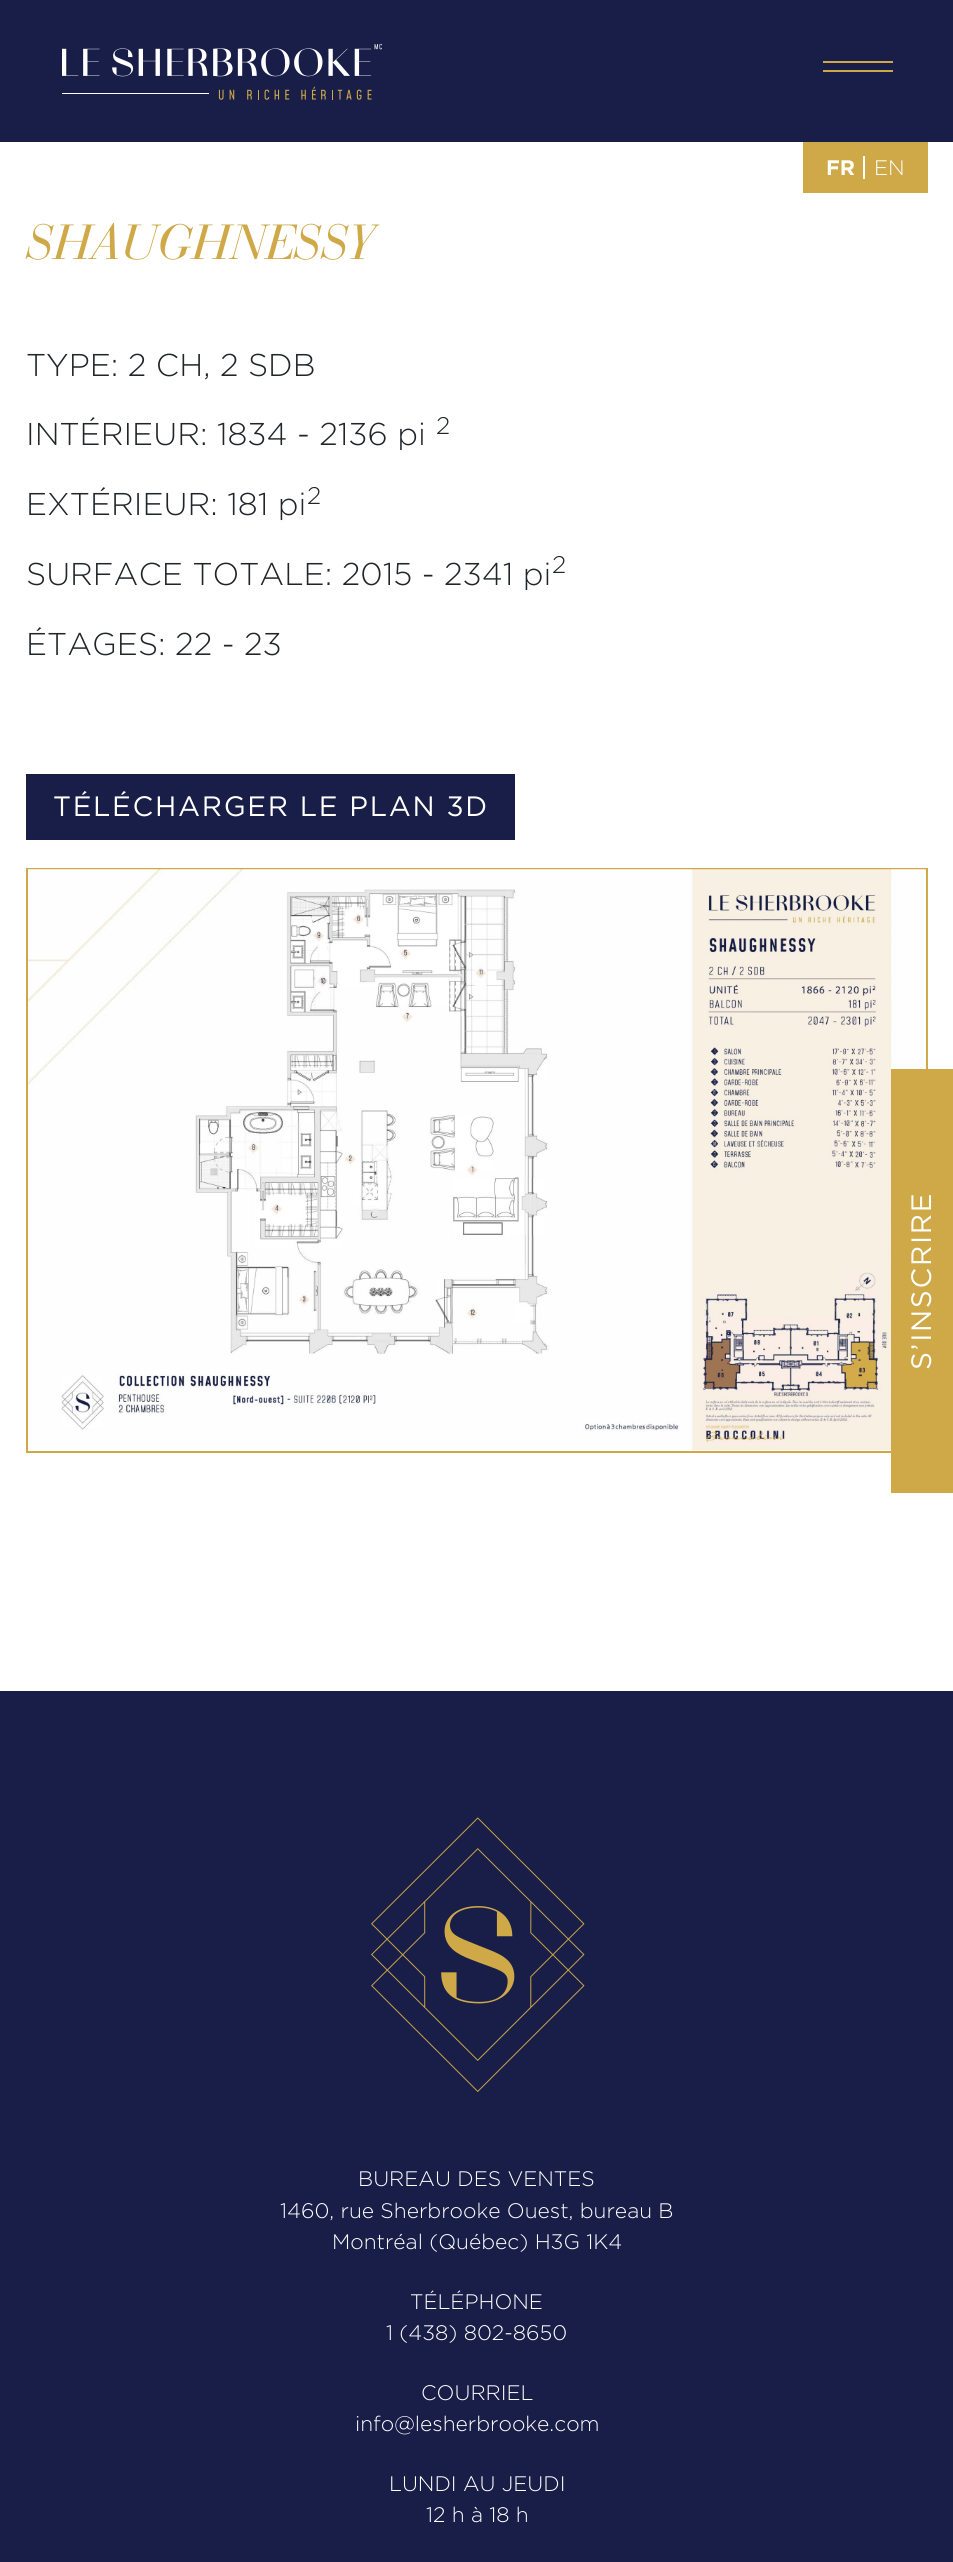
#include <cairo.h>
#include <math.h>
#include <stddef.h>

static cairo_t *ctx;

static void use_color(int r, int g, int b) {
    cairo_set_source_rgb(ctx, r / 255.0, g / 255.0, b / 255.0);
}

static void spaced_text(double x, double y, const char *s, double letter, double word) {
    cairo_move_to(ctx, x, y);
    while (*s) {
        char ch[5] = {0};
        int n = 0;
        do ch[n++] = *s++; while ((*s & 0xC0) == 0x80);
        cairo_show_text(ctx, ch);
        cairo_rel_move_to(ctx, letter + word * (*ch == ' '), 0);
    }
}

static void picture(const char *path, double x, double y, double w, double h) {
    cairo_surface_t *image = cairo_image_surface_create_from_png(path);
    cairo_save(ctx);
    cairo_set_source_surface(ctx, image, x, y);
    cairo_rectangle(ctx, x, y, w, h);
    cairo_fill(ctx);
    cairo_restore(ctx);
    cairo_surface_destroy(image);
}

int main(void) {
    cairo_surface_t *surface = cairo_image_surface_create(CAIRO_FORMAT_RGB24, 953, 2562);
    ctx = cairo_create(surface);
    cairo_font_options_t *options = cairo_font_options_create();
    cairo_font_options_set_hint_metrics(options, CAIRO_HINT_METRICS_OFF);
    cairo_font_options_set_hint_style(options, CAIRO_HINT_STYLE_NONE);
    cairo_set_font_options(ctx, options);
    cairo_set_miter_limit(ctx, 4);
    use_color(255, 255, 255);
    cairo_paint(ctx);
    use_color(25, 30, 72);
    cairo_rectangle(ctx, 0, 0, 953, 142);
    cairo_fill(ctx);
    picture("img1.png", 62, 44, 320, 56);
    use_color(207, 169, 72);
    cairo_rectangle(ctx, 823, 61, 70, 2);
    cairo_fill(ctx);
    cairo_rectangle(ctx, 823, 70, 70, 2);
    cairo_fill(ctx);
    cairo_rectangle(ctx, 803, 142, 125, 51);
    cairo_fill(ctx);
    cairo_select_font_face(ctx, "Gotham", CAIRO_FONT_SLANT_NORMAL, CAIRO_FONT_WEIGHT_BOLD);
    cairo_set_font_size(ctx, 21);
    use_color(255, 255, 255);
    cairo_move_to(ctx, 826, 175);
    cairo_show_text(ctx, "FR");
    cairo_rectangle(ctx, 863, 156, 2, 23);
    cairo_fill(ctx);
    cairo_select_font_face(ctx, "Gotham Light", CAIRO_FONT_SLANT_NORMAL, CAIRO_FONT_WEIGHT_NORMAL);
    cairo_move_to(ctx, 874, 175);
    cairo_show_text(ctx, "EN");
    cairo_select_font_face(ctx, "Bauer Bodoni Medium", CAIRO_FONT_SLANT_ITALIC, CAIRO_FONT_WEIGHT_NORMAL);
    cairo_set_font_size(ctx, 49);
    use_color(207, 169, 72);
    cairo_move_to(ctx, 26, 259);
    cairo_show_text(ctx, "SHAUGHNESSY");
    cairo_select_font_face(ctx, "Gotham Light", CAIRO_FONT_SLANT_NORMAL, CAIRO_FONT_WEIGHT_NORMAL);
    cairo_set_font_size(ctx, 31.5);
    use_color(33, 37, 41);
    cairo_move_to(ctx, 26, 376);
    cairo_show_text(ctx, "TYPE: 2 CH, 2 SDB");
    cairo_move_to(ctx, 26, 445);
    cairo_show_text(ctx, "INTÉRIEUR: 1834 - 2136 pi");
    cairo_set_font_size(ctx, 24);
    cairo_move_to(ctx, 436, 434);
    cairo_show_text(ctx, "2");
    cairo_set_font_size(ctx, 31.5);
    cairo_move_to(ctx, 26, 515);
    cairo_show_text(ctx, "EXTÉRIEUR: 181 pi");
    cairo_set_font_size(ctx, 24);
    cairo_move_to(ctx, 307, 504);
    cairo_show_text(ctx, "2");
    cairo_set_font_size(ctx, 31.5);
    cairo_move_to(ctx, 26, 585);
    cairo_show_text(ctx, "SURFACE TOTALE: 2015 - 2341 pi");
    cairo_set_font_size(ctx, 24);
    cairo_move_to(ctx, 552, 573);
    cairo_show_text(ctx, "2");
    cairo_set_font_size(ctx, 31.5);
    cairo_move_to(ctx, 26, 655);
    cairo_show_text(ctx, "ÉTAGES: 22 - 23");
    use_color(25, 30, 72);
    cairo_rectangle(ctx, 26, 774, 489, 66);
    cairo_fill(ctx);
    cairo_select_font_face(ctx, "Gotham", CAIRO_FONT_SLANT_NORMAL, CAIRO_FONT_WEIGHT_NORMAL);
    cairo_set_font_size(ctx, 28);
    use_color(255, 255, 255);
    spaced_text(53, 816, "TÉLÉCHARGER LE PLAN 3D", 1.7, 0);
    cairo_rectangle(ctx, 27, 869, 900, 583);
    use_color(207, 169, 72);
    cairo_stroke(ctx);
    picture("img2.png", 28, 869, 898, 582);
    cairo_rectangle(ctx, 891, 1069, 62, 424);
    cairo_fill(ctx);
    use_color(255, 255, 255);
    cairo_save(ctx);
    cairo_translate(ctx, 931, 1370);
    cairo_rotate(ctx, -90 * M_PI / 180);
    spaced_text(0, 0, "S’INSCRIRE", 1.7, 0);
    cairo_restore(ctx);
    use_color(25, 30, 72);
    cairo_rectangle(ctx, 0, 1691, 953, 871);
    cairo_fill(ctx);
    picture("img3.png", 371, 1817, 214, 275);
    cairo_select_font_face(ctx, "Gotham Light", CAIRO_FONT_SLANT_NORMAL, CAIRO_FONT_WEIGHT_NORMAL);
    cairo_set_font_size(ctx, 21);
    use_color(255, 255, 255);
    cairo_move_to(ctx, 358, 2186);
    cairo_show_text(ctx, "BUREAU DES VENTES");
    cairo_move_to(ctx, 280, 2218);
    cairo_show_text(ctx, "1460, rue Sherbrooke Ouest, bureau B");
    cairo_move_to(ctx, 332, 2249);
    cairo_show_text(ctx, "Montréal (Québec) H3G 1K4");
    cairo_move_to(ctx, 410, 2309);
    cairo_show_text(ctx, "TÉLÉPHONE");
    cairo_move_to(ctx, 386, 2340);
    cairo_show_text(ctx, "1 (438) 802-8650");
    cairo_move_to(ctx, 421, 2400);
    cairo_show_text(ctx, "COURRIEL");
    cairo_move_to(ctx, 355, 2431);
    cairo_show_text(ctx, "info@lesherbrooke.com");
    cairo_move_to(ctx, 389, 2491);
    cairo_show_text(ctx, "LUNDI AU JEUDI");
    cairo_move_to(ctx, 426, 2522);
    cairo_show_text(ctx, "12 h à 18 h");
    cairo_surface_write_to_png(surface, "result.png");
    cairo_font_options_destroy(options);
    cairo_destroy(ctx);
    cairo_surface_destroy(surface);
    return 0;
}
